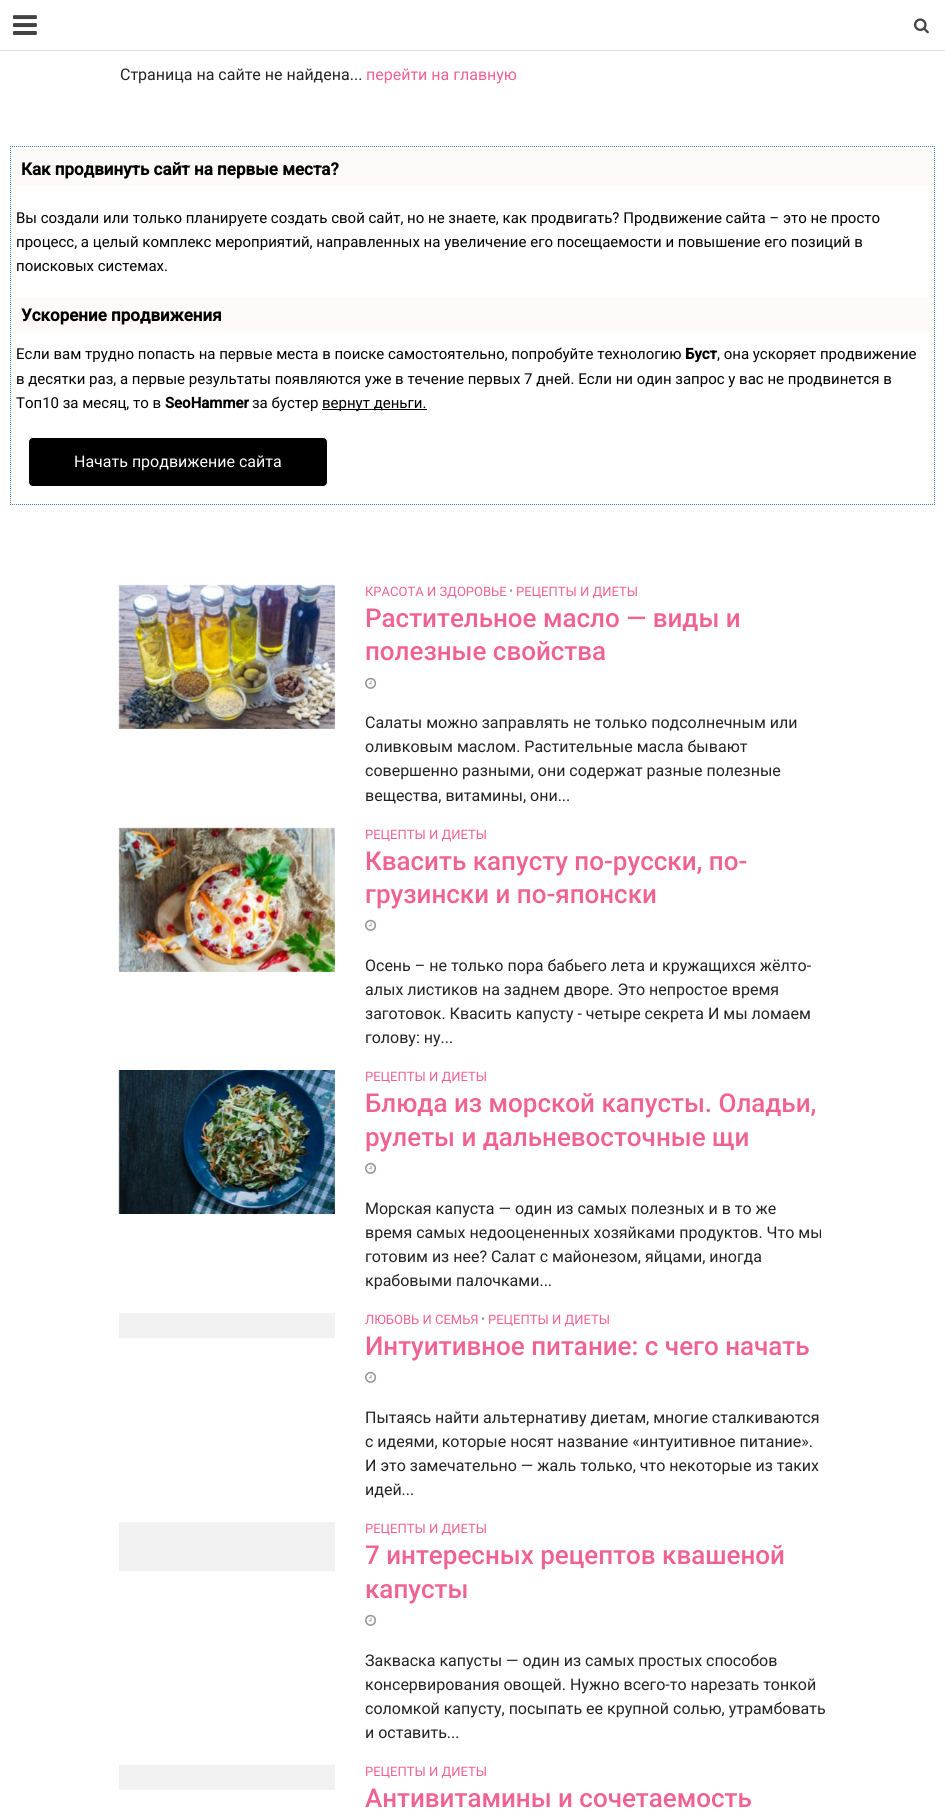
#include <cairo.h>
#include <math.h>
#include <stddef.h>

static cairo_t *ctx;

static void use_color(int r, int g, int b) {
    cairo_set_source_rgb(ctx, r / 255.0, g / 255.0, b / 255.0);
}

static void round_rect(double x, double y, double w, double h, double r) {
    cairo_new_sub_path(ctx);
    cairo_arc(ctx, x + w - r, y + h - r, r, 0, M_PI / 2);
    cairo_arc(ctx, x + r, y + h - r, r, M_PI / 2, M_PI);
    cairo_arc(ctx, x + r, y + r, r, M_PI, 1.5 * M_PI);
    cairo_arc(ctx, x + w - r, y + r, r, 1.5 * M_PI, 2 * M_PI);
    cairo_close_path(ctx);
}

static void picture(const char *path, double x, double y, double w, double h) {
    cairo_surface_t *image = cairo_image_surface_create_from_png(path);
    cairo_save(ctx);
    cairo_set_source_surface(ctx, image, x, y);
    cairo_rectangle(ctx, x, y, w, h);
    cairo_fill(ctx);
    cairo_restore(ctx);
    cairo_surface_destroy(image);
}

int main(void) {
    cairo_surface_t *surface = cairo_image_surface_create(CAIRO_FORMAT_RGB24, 945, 1818);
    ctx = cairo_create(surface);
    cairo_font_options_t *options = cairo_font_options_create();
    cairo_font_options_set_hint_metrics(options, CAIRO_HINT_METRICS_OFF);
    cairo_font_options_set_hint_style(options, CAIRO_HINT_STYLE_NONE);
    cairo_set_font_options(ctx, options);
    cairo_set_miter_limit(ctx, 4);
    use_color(255, 255, 255);
    cairo_paint(ctx);
    cairo_set_source_rgba(ctx, 0.259, 0.259, 0.259, 0.15);
    cairo_new_path(ctx);
    cairo_move_to(ctx, 0, -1);
    cairo_line_to(ctx, 0, 0);
    cairo_line_to(ctx, 945, 0);
    cairo_line_to(ctx, 945, 50);
    cairo_line_to(ctx, 0, 50);
    cairo_line_to(ctx, 0, 51);
    cairo_line_to(ctx, 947, 51);
    cairo_line_to(ctx, 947, -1);
    cairo_close_path(ctx);
    cairo_fill(ctx);
    picture("img1.png", 13, 15, 24, 20);
    picture("img2.png", 914, 18, 15, 16);
    cairo_select_font_face(ctx, "Roboto", CAIRO_FONT_SLANT_NORMAL, CAIRO_FONT_WEIGHT_NORMAL);
    cairo_set_font_size(ctx, 16);
    use_color(35, 35, 35);
    cairo_move_to(ctx, 120, 80);
    cairo_show_text(ctx, "Страница на сайте не найдена...");
    use_color(240, 98, 146);
    cairo_move_to(ctx, 366, 80);
    cairo_show_text(ctx, "перейти на главную");
    cairo_new_path(ctx);
    cairo_move_to(ctx, 10, 146.5);
    cairo_line_to(ctx, 935, 146.5);
    use_color(70, 130, 180);
    cairo_set_line_width(ctx, 1);
    cairo_set_dash(ctx, (double[]){1, 1}, 2, 0);
    cairo_stroke(ctx);
    cairo_new_path(ctx);
    cairo_move_to(ctx, 934.5, 146);
    cairo_line_to(ctx, 934.5, 505);
    cairo_stroke(ctx);
    cairo_new_path(ctx);
    cairo_move_to(ctx, 10, 504.5);
    cairo_line_to(ctx, 935, 504.5);
    cairo_stroke(ctx);
    cairo_new_path(ctx);
    cairo_move_to(ctx, 10.5, 146);
    cairo_line_to(ctx, 10.5, 505);
    cairo_stroke(ctx);
    use_color(255, 250, 250);
    cairo_rectangle(ctx, 16, 152, 913, 34);
    cairo_fill(ctx);
    cairo_select_font_face(ctx, "Roboto", CAIRO_FONT_SLANT_NORMAL, CAIRO_FONT_WEIGHT_BOLD);
    cairo_set_font_size(ctx, 17);
    use_color(0, 0, 0);
    cairo_move_to(ctx, 21, 175);
    cairo_show_text(ctx, "Как продвинуть сайт на первые места?");
    cairo_select_font_face(ctx, "Roboto", CAIRO_FONT_SLANT_NORMAL, CAIRO_FONT_WEIGHT_NORMAL);
    cairo_set_font_size(ctx, 15);
    cairo_move_to(ctx, 16, 223);
    cairo_show_text(ctx, "Вы создали или только планируете создать свой сайт, но не знаете, как продвигать? Продвижение сайта – это не просто");
    cairo_move_to(ctx, 16, 247);
    cairo_show_text(ctx, "процесс, а целый комплекс мероприятий, направленных на увеличение его посещаемости и повышение его позиций в");
    cairo_move_to(ctx, 16, 271);
    cairo_show_text(ctx, "поисковых системах.");
    use_color(255, 250, 250);
    cairo_rectangle(ctx, 16, 298, 913, 34);
    cairo_fill(ctx);
    cairo_select_font_face(ctx, "Roboto", CAIRO_FONT_SLANT_NORMAL, CAIRO_FONT_WEIGHT_BOLD);
    cairo_set_font_size(ctx, 17);
    use_color(0, 0, 0);
    cairo_move_to(ctx, 21, 321);
    cairo_show_text(ctx, "Ускорение продвижения");
    cairo_select_font_face(ctx, "Roboto", CAIRO_FONT_SLANT_NORMAL, CAIRO_FONT_WEIGHT_NORMAL);
    cairo_set_font_size(ctx, 15);
    cairo_move_to(ctx, 16, 359);
    cairo_show_text(ctx, "Если вам трудно попасть на первые места в поиске самостоятельно, попробуйте технологию");
    cairo_select_font_face(ctx, "Roboto", CAIRO_FONT_SLANT_NORMAL, CAIRO_FONT_WEIGHT_BOLD);
    cairo_move_to(ctx, 685, 359);
    cairo_show_text(ctx, "Буст");
    cairo_select_font_face(ctx, "Roboto", CAIRO_FONT_SLANT_NORMAL, CAIRO_FONT_WEIGHT_NORMAL);
    cairo_move_to(ctx, 717, 359);
    cairo_show_text(ctx, ", она ускоряет продвижение");
    cairo_move_to(ctx, 16, 384);
    cairo_show_text(ctx, "в десятки раз, а первые результаты появляются уже в течение первых 7 дней. Если ни один запрос у вас не продвинется в");
    cairo_move_to(ctx, 16, 408);
    cairo_show_text(ctx, "Топ10 за месяц, то в");
    cairo_select_font_face(ctx, "Roboto", CAIRO_FONT_SLANT_NORMAL, CAIRO_FONT_WEIGHT_BOLD);
    cairo_move_to(ctx, 165, 408);
    cairo_show_text(ctx, "SeoHammer");
    cairo_select_font_face(ctx, "Roboto", CAIRO_FONT_SLANT_NORMAL, CAIRO_FONT_WEIGHT_NORMAL);
    cairo_move_to(ctx, 252, 408);
    cairo_show_text(ctx, "за бустер");
    cairo_rectangle(ctx, 322, 409, 105, 1);
    cairo_fill(ctx);
    cairo_move_to(ctx, 322, 408);
    cairo_show_text(ctx, "вернут деньги.");
    round_rect(28.5, 437.5, 299, 49, 4.5);
    cairo_fill_preserve(ctx);
    use_color(255, 255, 255);
    cairo_set_dash(ctx, NULL, 0, 0);
    cairo_stroke(ctx);
    cairo_set_font_size(ctx, 16);
    cairo_move_to(ctx, 74, 467);
    cairo_show_text(ctx, "Начать продвижение сайта");
    use_color(242, 242, 242);
    cairo_rectangle(ctx, 119, 585, 216, 144);
    cairo_fill(ctx);
    picture("img3.png", 118, 584, 217, 145);
    cairo_set_font_size(ctx, 13);
    use_color(240, 98, 146);
    cairo_move_to(ctx, 365, 596);
    cairo_show_text(ctx, "КРАСОТА И ЗДОРОВЬЕ");
    cairo_set_font_size(ctx, 12);
    use_color(153, 153, 153);
    cairo_move_to(ctx, 509, 595);
    cairo_show_text(ctx, "•");
    cairo_set_font_size(ctx, 13);
    use_color(240, 98, 146);
    cairo_move_to(ctx, 516, 596);
    cairo_show_text(ctx, "РЕЦЕПТЫ И ДИЕТЫ");
    cairo_select_font_face(ctx, "Roboto Medium", CAIRO_FONT_SLANT_NORMAL, CAIRO_FONT_WEIGHT_NORMAL);
    cairo_set_font_size(ctx, 26);
    cairo_move_to(ctx, 365, 627);
    cairo_show_text(ctx, "Растительное масло — виды и");
    cairo_move_to(ctx, 365, 660);
    cairo_show_text(ctx, "полезные свойства");
    picture("img4.png", 365, 677, 12, 12);
    cairo_select_font_face(ctx, "Roboto", CAIRO_FONT_SLANT_NORMAL, CAIRO_FONT_WEIGHT_NORMAL);
    cairo_set_font_size(ctx, 16);
    use_color(35, 35, 35);
    cairo_move_to(ctx, 365, 728);
    cairo_show_text(ctx, "Салаты можно заправлять не только подсолнечным или");
    cairo_move_to(ctx, 365, 752);
    cairo_show_text(ctx, "оливковым маслом. Растительные масла бывают");
    cairo_move_to(ctx, 365, 776);
    cairo_show_text(ctx, "совершенно разными, они содержат разные полезные");
    cairo_move_to(ctx, 365, 801);
    cairo_show_text(ctx, "вещества, витамины, они...");
    use_color(242, 242, 242);
    cairo_rectangle(ctx, 119, 828, 216, 144);
    cairo_fill(ctx);
    picture("img5.png", 118, 827, 217, 145);
    cairo_set_font_size(ctx, 13);
    use_color(240, 98, 146);
    cairo_move_to(ctx, 365, 839);
    cairo_show_text(ctx, "РЕЦЕПТЫ И ДИЕТЫ");
    cairo_select_font_face(ctx, "Roboto Medium", CAIRO_FONT_SLANT_NORMAL, CAIRO_FONT_WEIGHT_NORMAL);
    cairo_set_font_size(ctx, 26);
    cairo_move_to(ctx, 365, 870);
    cairo_show_text(ctx, "Квасить капусту по-русски, по-");
    cairo_move_to(ctx, 365, 903);
    cairo_show_text(ctx, "грузински и по-японски");
    picture("img4.png", 365, 919, 12, 12);
    cairo_select_font_face(ctx, "Roboto", CAIRO_FONT_SLANT_NORMAL, CAIRO_FONT_WEIGHT_NORMAL);
    cairo_set_font_size(ctx, 16);
    use_color(35, 35, 35);
    cairo_move_to(ctx, 365, 971);
    cairo_show_text(ctx, "Осень – не только пора бабьего лета и кружащихся жёлто-");
    cairo_move_to(ctx, 365, 995);
    cairo_show_text(ctx, "алых листиков на заднем дворе. Это непростое время");
    cairo_move_to(ctx, 365, 1019);
    cairo_show_text(ctx, "заготовок. Квасить капусту - четыре секрета И мы ломаем");
    cairo_move_to(ctx, 365, 1043);
    cairo_show_text(ctx, "голову: ну...");
    picture("img6.png", 118, 1070, 217, 144);
    cairo_set_font_size(ctx, 13);
    use_color(240, 98, 146);
    cairo_move_to(ctx, 365, 1081);
    cairo_show_text(ctx, "РЕЦЕПТЫ И ДИЕТЫ");
    cairo_select_font_face(ctx, "Roboto Medium", CAIRO_FONT_SLANT_NORMAL, CAIRO_FONT_WEIGHT_NORMAL);
    cairo_set_font_size(ctx, 26);
    cairo_move_to(ctx, 365, 1112);
    cairo_show_text(ctx, "Блюда из морской капусты. Оладьи,");
    cairo_move_to(ctx, 365, 1146);
    cairo_show_text(ctx, "рулеты и дальневосточные щи");
    picture("img4.png", 365, 1162, 12, 12);
    cairo_select_font_face(ctx, "Roboto", CAIRO_FONT_SLANT_NORMAL, CAIRO_FONT_WEIGHT_NORMAL);
    cairo_set_font_size(ctx, 16);
    use_color(35, 35, 35);
    cairo_move_to(ctx, 365, 1214);
    cairo_show_text(ctx, "Морская капуста — один из самых полезных и в то же");
    cairo_move_to(ctx, 365, 1238);
    cairo_show_text(ctx, "время самых недооцененных хозяйками продуктов. Что мы");
    cairo_move_to(ctx, 365, 1262);
    cairo_show_text(ctx, "готовим из нее? Салат с майонезом, яйцами, иногда");
    cairo_move_to(ctx, 365, 1286);
    cairo_show_text(ctx, "крабовыми палочками...");
    use_color(242, 242, 242);
    cairo_rectangle(ctx, 119, 1313, 216, 25);
    cairo_fill(ctx);
    cairo_set_font_size(ctx, 13);
    use_color(240, 98, 146);
    cairo_move_to(ctx, 365, 1324);
    cairo_show_text(ctx, "ЛЮБОВЬ И СЕМЬЯ");
    cairo_set_font_size(ctx, 12);
    use_color(153, 153, 153);
    cairo_move_to(ctx, 481, 1323);
    cairo_show_text(ctx, "•");
    cairo_set_font_size(ctx, 13);
    use_color(240, 98, 146);
    cairo_move_to(ctx, 488, 1324);
    cairo_show_text(ctx, "РЕЦЕПТЫ И ДИЕТЫ");
    cairo_select_font_face(ctx, "Roboto Medium", CAIRO_FONT_SLANT_NORMAL, CAIRO_FONT_WEIGHT_NORMAL);
    cairo_set_font_size(ctx, 26);
    cairo_move_to(ctx, 365, 1355);
    cairo_show_text(ctx, "Интуитивное питание: с чего начать");
    picture("img4.png", 365, 1371, 12, 12);
    cairo_select_font_face(ctx, "Roboto", CAIRO_FONT_SLANT_NORMAL, CAIRO_FONT_WEIGHT_NORMAL);
    cairo_set_font_size(ctx, 16);
    use_color(35, 35, 35);
    cairo_move_to(ctx, 365, 1423);
    cairo_show_text(ctx, "Пытаясь найти альтернативу диетам, многие сталкиваются");
    cairo_move_to(ctx, 365, 1447);
    cairo_show_text(ctx, "с идеями, которые носят название «интуитивное питание».");
    cairo_move_to(ctx, 365, 1471);
    cairo_show_text(ctx, "И это замечательно — жаль только, что некоторые из таких");
    cairo_move_to(ctx, 365, 1495);
    cairo_show_text(ctx, "идей...");
    use_color(242, 242, 242);
    cairo_rectangle(ctx, 119, 1522, 216, 49);
    cairo_fill(ctx);
    cairo_set_font_size(ctx, 13);
    use_color(240, 98, 146);
    cairo_move_to(ctx, 365, 1533);
    cairo_show_text(ctx, "РЕЦЕПТЫ И ДИЕТЫ");
    cairo_select_font_face(ctx, "Roboto Medium", CAIRO_FONT_SLANT_NORMAL, CAIRO_FONT_WEIGHT_NORMAL);
    cairo_set_font_size(ctx, 26);
    cairo_move_to(ctx, 365, 1564);
    cairo_show_text(ctx, "7 интересных рецептов квашеной");
    cairo_move_to(ctx, 365, 1598);
    cairo_show_text(ctx, "капусты");
    picture("img4.png", 365, 1614, 12, 12);
    cairo_select_font_face(ctx, "Roboto", CAIRO_FONT_SLANT_NORMAL, CAIRO_FONT_WEIGHT_NORMAL);
    cairo_set_font_size(ctx, 16);
    use_color(35, 35, 35);
    cairo_move_to(ctx, 365, 1666);
    cairo_show_text(ctx, "Закваска капусты — один из самых простых способов");
    cairo_move_to(ctx, 365, 1690);
    cairo_show_text(ctx, "консервирования овощей. Нужно всего-то нарезать тонкой");
    cairo_move_to(ctx, 365, 1714);
    cairo_show_text(ctx, "соломкой капусту, посыпать ее крупной солью, утрамбовать");
    cairo_move_to(ctx, 365, 1738);
    cairo_show_text(ctx, "и оставить...");
    use_color(242, 242, 242);
    cairo_rectangle(ctx, 119, 1765, 216, 25);
    cairo_fill(ctx);
    cairo_set_font_size(ctx, 13);
    use_color(240, 98, 146);
    cairo_move_to(ctx, 365, 1776);
    cairo_show_text(ctx, "РЕЦЕПТЫ И ДИЕТЫ");
    cairo_select_font_face(ctx, "Roboto Medium", CAIRO_FONT_SLANT_NORMAL, CAIRO_FONT_WEIGHT_NORMAL);
    cairo_set_font_size(ctx, 26);
    cairo_move_to(ctx, 365, 1807);
    cairo_show_text(ctx, "Антивитамины и сочетаемость");
    cairo_surface_write_to_png(surface, "result.png");
    cairo_font_options_destroy(options);
    cairo_destroy(ctx);
    cairo_surface_destroy(surface);
    return 0;
}
